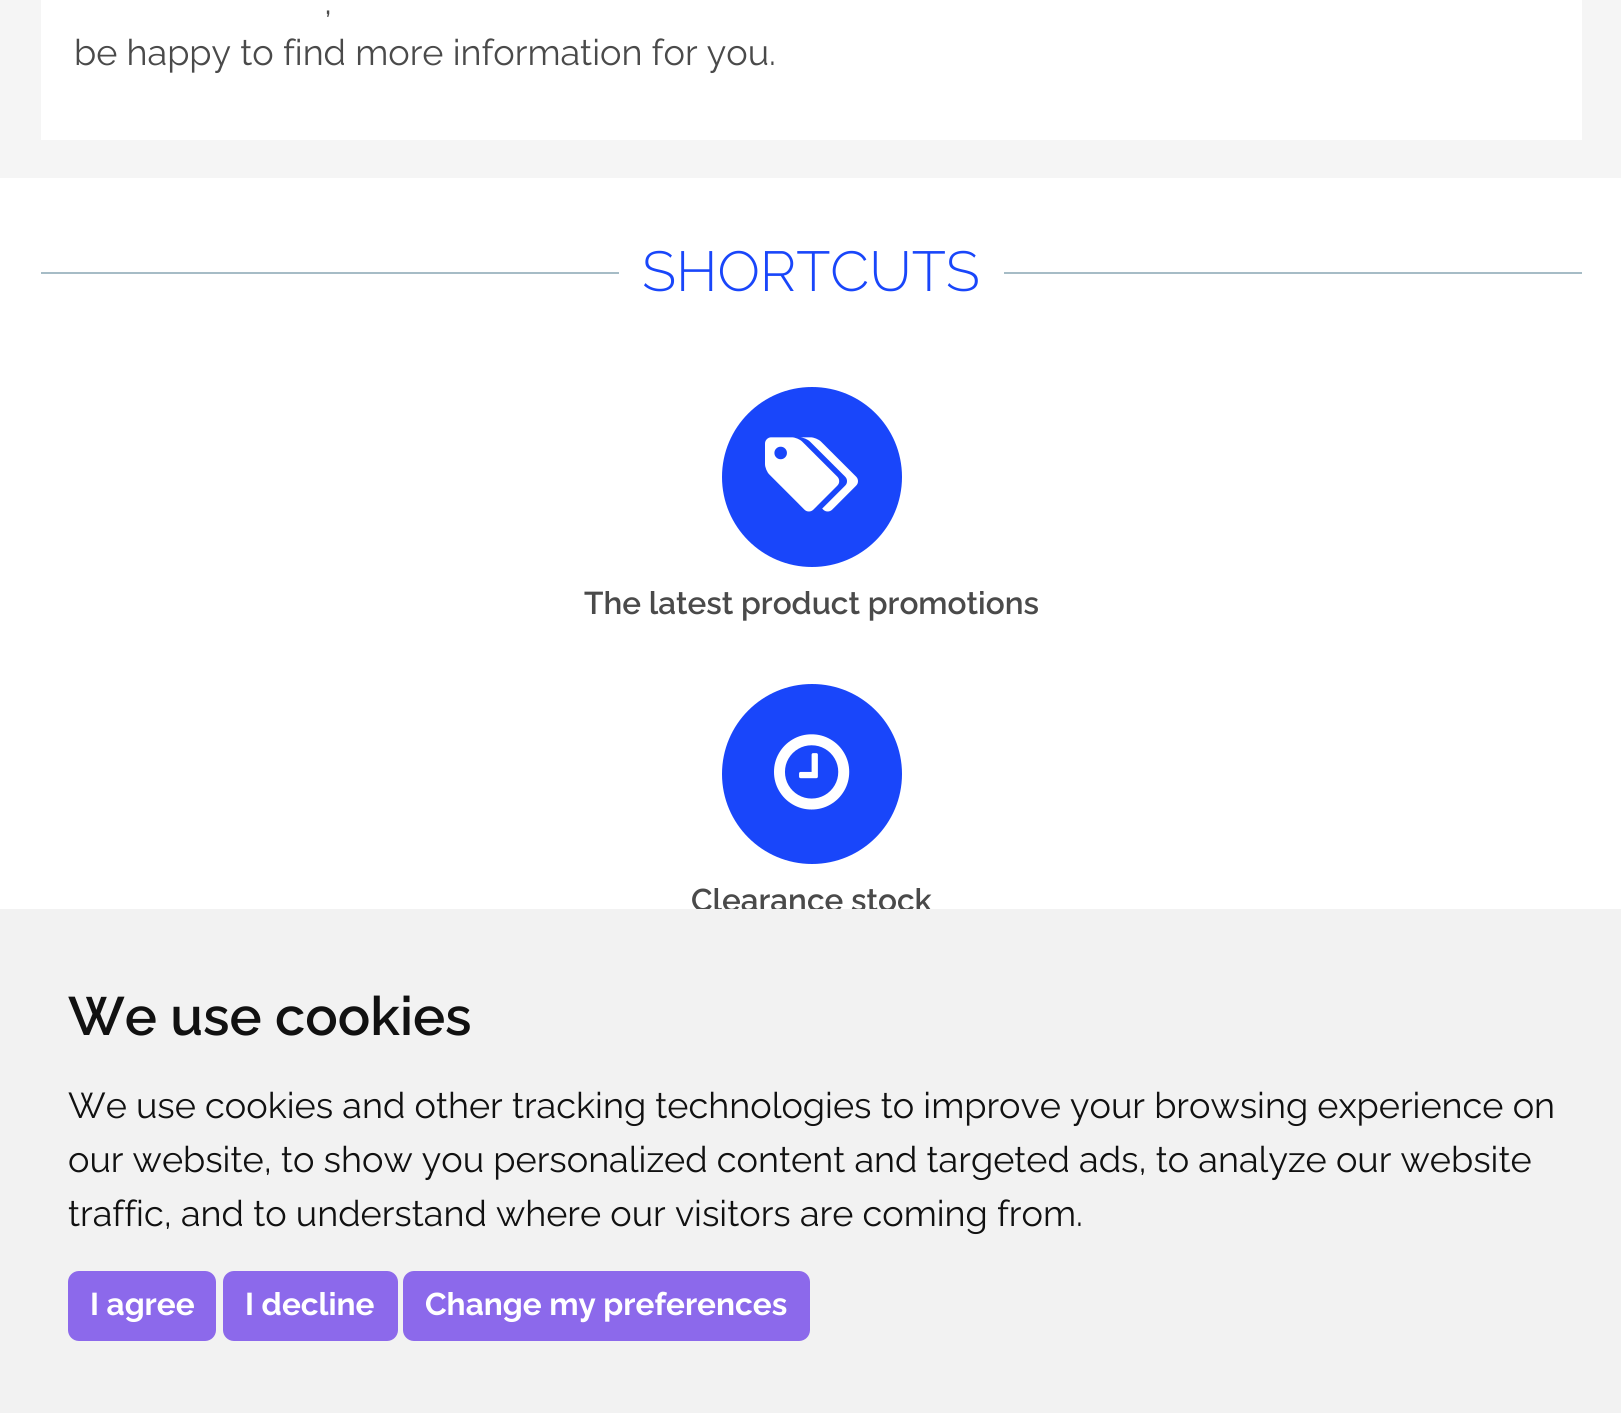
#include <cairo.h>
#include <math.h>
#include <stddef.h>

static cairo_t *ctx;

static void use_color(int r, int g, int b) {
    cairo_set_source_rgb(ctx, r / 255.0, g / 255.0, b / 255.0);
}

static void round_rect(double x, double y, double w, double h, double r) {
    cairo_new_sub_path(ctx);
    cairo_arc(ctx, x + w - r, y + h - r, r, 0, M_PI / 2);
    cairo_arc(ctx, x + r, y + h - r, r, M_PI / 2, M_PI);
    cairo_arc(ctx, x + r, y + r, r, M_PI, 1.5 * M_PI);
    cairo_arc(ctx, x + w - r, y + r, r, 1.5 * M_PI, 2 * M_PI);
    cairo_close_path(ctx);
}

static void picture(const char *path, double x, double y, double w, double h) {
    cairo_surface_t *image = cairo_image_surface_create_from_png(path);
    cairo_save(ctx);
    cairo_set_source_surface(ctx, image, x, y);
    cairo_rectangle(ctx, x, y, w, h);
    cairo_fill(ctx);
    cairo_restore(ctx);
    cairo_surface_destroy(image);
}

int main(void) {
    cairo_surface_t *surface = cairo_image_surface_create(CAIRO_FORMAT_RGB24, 1621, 1413);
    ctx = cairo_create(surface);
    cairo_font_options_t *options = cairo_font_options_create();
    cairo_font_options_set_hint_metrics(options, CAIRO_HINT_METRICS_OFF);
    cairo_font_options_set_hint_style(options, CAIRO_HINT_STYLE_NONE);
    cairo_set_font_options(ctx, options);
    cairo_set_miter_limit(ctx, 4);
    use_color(245, 245, 245);
    cairo_paint(ctx);
    use_color(255, 255, 255);
    cairo_rectangle(ctx, 41, 0, 1541, 140);
    cairo_fill(ctx);
    cairo_select_font_face(ctx, "Raleway", CAIRO_FONT_SLANT_NORMAL, CAIRO_FONT_WEIGHT_NORMAL);
    cairo_set_font_size(ctx, 36);
    use_color(74, 74, 74);
    cairo_move_to(ctx, 324, 14);
    cairo_show_text(ctx, ",");
    cairo_move_to(ctx, 74, 65);
    cairo_show_text(ctx, "be happy to find more information for you.");
    use_color(255, 255, 255);
    cairo_rectangle(ctx, 0, 178, 1621, 731);
    cairo_fill(ctx);
    use_color(166, 188, 198);
    cairo_rectangle(ctx, 41, 272, 1541, 2);
    cairo_fill(ctx);
    use_color(255, 255, 255);
    cairo_rectangle(ctx, 619, 272, 385, 2);
    cairo_fill(ctx);
    cairo_select_font_face(ctx, "Raleway Light", CAIRO_FONT_SLANT_NORMAL, CAIRO_FONT_WEIGHT_NORMAL);
    cairo_set_font_size(ctx, 56.25);
    use_color(25, 70, 250);
    cairo_move_to(ctx, 642, 291);
    cairo_show_text(ctx, "SHORTCUTS");
    cairo_new_path(ctx);
    cairo_arc(ctx, 812, 477, 90, 0, 2 * M_PI);
    cairo_fill(ctx);
    picture("img1.png", 765, 437, 93, 75);
    cairo_select_font_face(ctx, "Raleway SemiBold", CAIRO_FONT_SLANT_NORMAL, CAIRO_FONT_WEIGHT_NORMAL);
    cairo_set_font_size(ctx, 31.5);
    use_color(74, 74, 74);
    cairo_move_to(ctx, 584, 614);
    cairo_show_text(ctx, "The latest product promotions");
    use_color(25, 70, 250);
    cairo_new_path(ctx);
    cairo_arc(ctx, 812, 774, 90, 0, 2 * M_PI);
    cairo_fill(ctx);
    picture("img2.png", 774, 734, 76, 76);
    use_color(74, 74, 74);
    cairo_move_to(ctx, 691, 911);
    cairo_show_text(ctx, "Clearance stock");
    use_color(242, 242, 242);
    cairo_rectangle(ctx, 0, 909, 1621, 504);
    cairo_fill(ctx);
    cairo_set_font_size(ctx, 54);
    use_color(17, 17, 17);
    cairo_move_to(ctx, 68, 1035);
    cairo_show_text(ctx, "We use cookies");
    cairo_select_font_face(ctx, "Raleway", CAIRO_FONT_SLANT_NORMAL, CAIRO_FONT_WEIGHT_NORMAL);
    cairo_set_font_size(ctx, 36);
    cairo_move_to(ctx, 68, 1118);
    cairo_show_text(ctx, "We use cookies and other tracking technologies to improve your browsing experience on");
    cairo_move_to(ctx, 68, 1172);
    cairo_show_text(ctx, "our website, to show you personalized content and targeted ads, to analyze our website");
    cairo_move_to(ctx, 68, 1226);
    cairo_show_text(ctx, "traffic, and to understand where our visitors are coming from.");
    use_color(140, 105, 235);
    round_rect(68, 1271, 148, 70, 11);
    cairo_fill(ctx);
    cairo_select_font_face(ctx, "Raleway", CAIRO_FONT_SLANT_NORMAL, CAIRO_FONT_WEIGHT_BOLD);
    cairo_set_font_size(ctx, 31.5);
    use_color(255, 255, 255);
    cairo_move_to(ctx, 90, 1315);
    cairo_show_text(ctx, "I agree");
    use_color(140, 105, 235);
    round_rect(223, 1271, 175, 70, 11);
    cairo_fill(ctx);
    use_color(255, 255, 255);
    cairo_move_to(ctx, 245, 1315);
    cairo_show_text(ctx, "I decline");
    use_color(140, 105, 235);
    round_rect(403, 1271, 407, 70, 11);
    cairo_fill(ctx);
    use_color(255, 255, 255);
    cairo_move_to(ctx, 425, 1315);
    cairo_show_text(ctx, "Change my preferences");
    cairo_surface_write_to_png(surface, "result.png");
    cairo_font_options_destroy(options);
    cairo_destroy(ctx);
    cairo_surface_destroy(surface);
    return 0;
}
